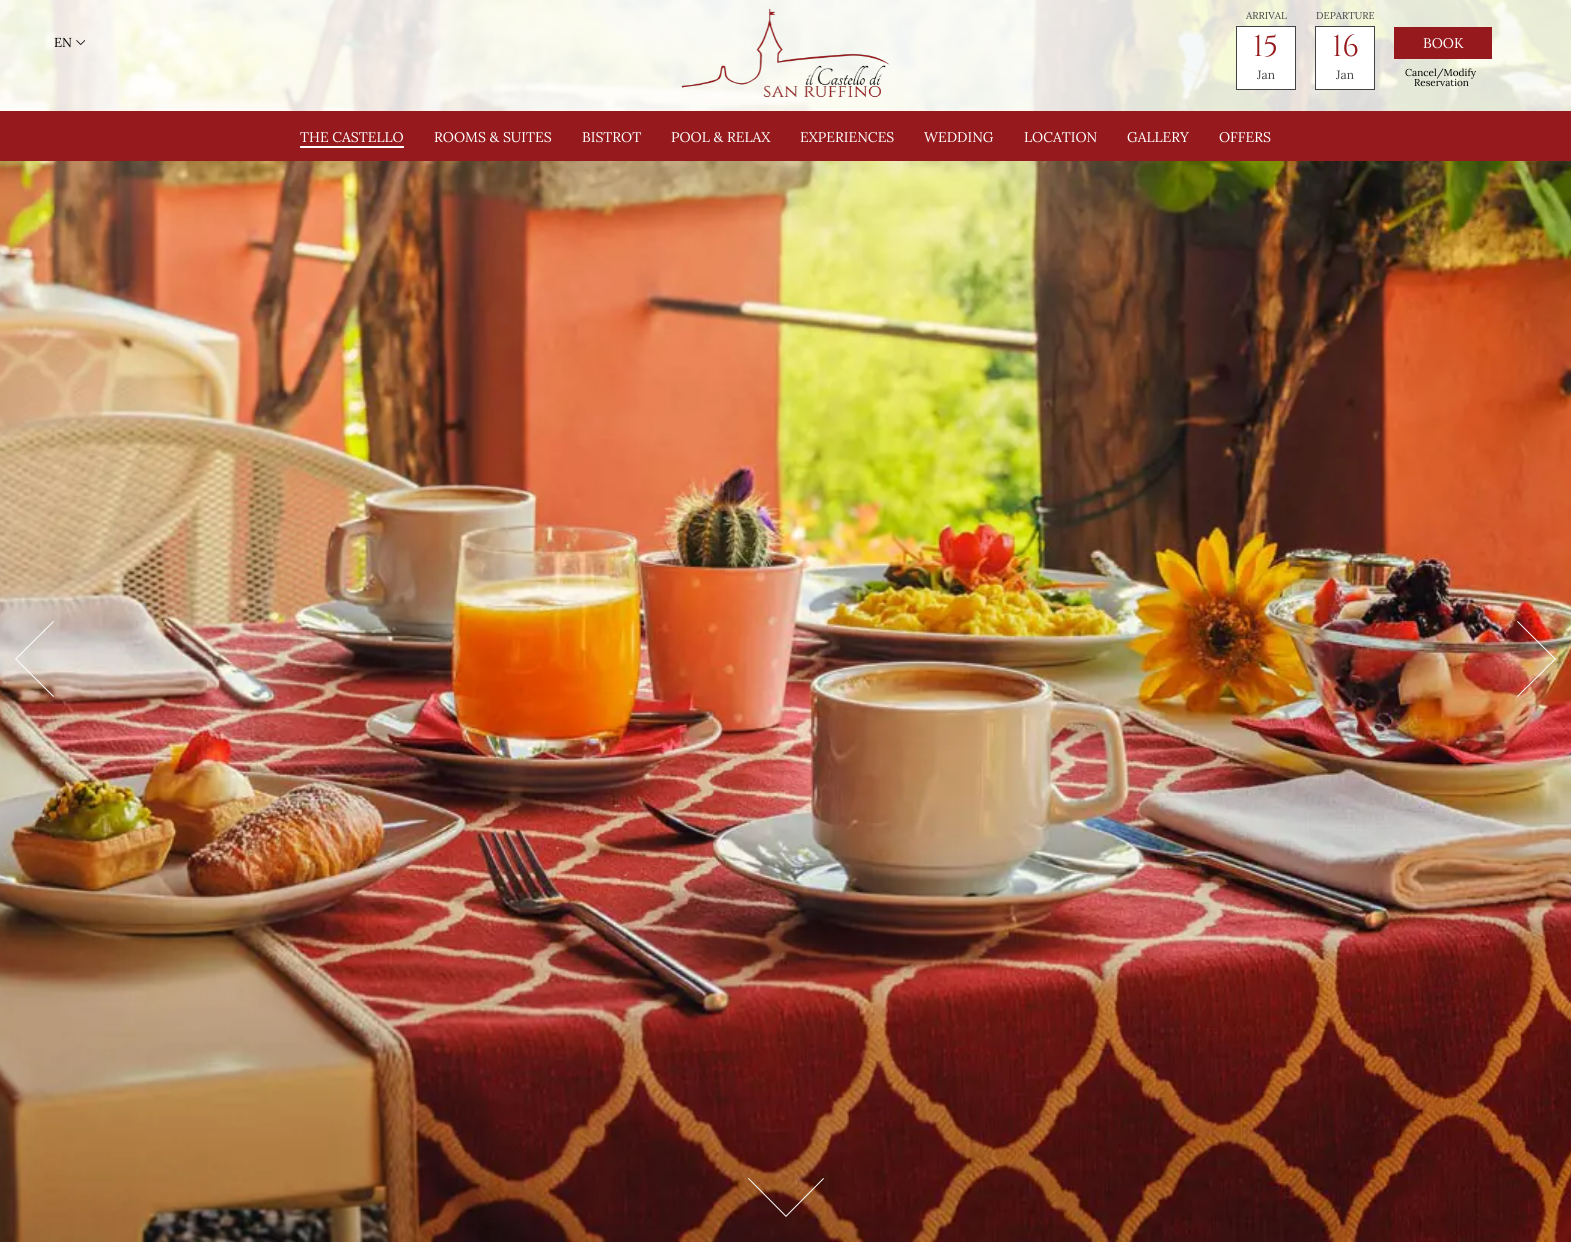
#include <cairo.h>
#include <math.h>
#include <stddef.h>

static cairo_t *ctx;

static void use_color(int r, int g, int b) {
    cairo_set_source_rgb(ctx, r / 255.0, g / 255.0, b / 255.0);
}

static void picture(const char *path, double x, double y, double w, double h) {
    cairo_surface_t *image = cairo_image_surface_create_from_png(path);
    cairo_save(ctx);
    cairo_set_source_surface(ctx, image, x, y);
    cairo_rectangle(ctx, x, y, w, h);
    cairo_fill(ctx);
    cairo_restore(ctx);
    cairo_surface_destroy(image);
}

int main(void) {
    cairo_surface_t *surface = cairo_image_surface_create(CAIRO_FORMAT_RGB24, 1571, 1242);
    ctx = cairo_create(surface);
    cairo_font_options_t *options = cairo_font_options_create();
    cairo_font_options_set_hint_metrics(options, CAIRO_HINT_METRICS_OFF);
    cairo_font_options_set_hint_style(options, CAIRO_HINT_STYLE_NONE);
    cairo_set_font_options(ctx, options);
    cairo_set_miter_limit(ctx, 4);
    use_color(255, 255, 255);
    cairo_paint(ctx);
    picture("img1.png", 0, 0, 1571, 1242);
    picture("img2.png", 15, 621, 39, 76);
    picture("img3.png", 1517, 621, 39, 76);
    picture("img4.png", 748, 1178, 76, 39);
    cairo_set_source_rgba(ctx, 1, 1, 1, 0.84);
    cairo_rectangle(ctx, 0, 0, 1571, 111);
    cairo_fill(ctx);
    cairo_select_font_face(ctx, "Lora", CAIRO_FONT_SLANT_NORMAL, CAIRO_FONT_WEIGHT_NORMAL);
    cairo_set_font_size(ctx, 13);
    use_color(0, 0, 0);
    cairo_move_to(ctx, 54, 47);
    cairo_show_text(ctx, "EN");
    picture("img5.png", 76, 40, 10, 5);
    picture("img6.png", 681, 9, 209, 89);
    use_color(255, 255, 255);
    cairo_rectangle(ctx, 1236.5, 26.5, 59, 63);
    cairo_fill_preserve(ctx);
    use_color(67, 67, 67);
    cairo_set_line_width(ctx, 1);
    cairo_stroke(ctx);
    cairo_set_font_size(ctx, 10);
    cairo_move_to(ctx, 1246, 19);
    cairo_show_text(ctx, "ARRIVAL");
    cairo_select_font_face(ctx, "Cinzel", CAIRO_FONT_SLANT_NORMAL, CAIRO_FONT_WEIGHT_NORMAL);
    cairo_set_font_size(ctx, 30);
    use_color(150, 26, 29);
    cairo_move_to(ctx, 1253, 56);
    cairo_show_text(ctx, "15");
    cairo_select_font_face(ctx, "Lora", CAIRO_FONT_SLANT_NORMAL, CAIRO_FONT_WEIGHT_NORMAL);
    cairo_set_font_size(ctx, 12);
    use_color(67, 67, 67);
    cairo_move_to(ctx, 1257, 79);
    cairo_show_text(ctx, "Jan");
    use_color(255, 255, 255);
    cairo_rectangle(ctx, 1315.5, 26.5, 59, 63);
    cairo_fill_preserve(ctx);
    use_color(67, 67, 67);
    cairo_stroke(ctx);
    cairo_set_font_size(ctx, 10);
    cairo_move_to(ctx, 1316, 19);
    cairo_show_text(ctx, "DEPARTURE");
    cairo_select_font_face(ctx, "Cinzel", CAIRO_FONT_SLANT_NORMAL, CAIRO_FONT_WEIGHT_NORMAL);
    cairo_set_font_size(ctx, 30);
    use_color(150, 26, 29);
    cairo_move_to(ctx, 1332, 56);
    cairo_show_text(ctx, "16");
    cairo_select_font_face(ctx, "Lora", CAIRO_FONT_SLANT_NORMAL, CAIRO_FONT_WEIGHT_NORMAL);
    cairo_set_font_size(ctx, 12);
    use_color(67, 67, 67);
    cairo_move_to(ctx, 1336, 79);
    cairo_show_text(ctx, "Jan");
    use_color(150, 26, 29);
    cairo_rectangle(ctx, 1394, 27, 98, 32);
    cairo_fill(ctx);
    cairo_set_font_size(ctx, 14);
    use_color(255, 255, 255);
    cairo_move_to(ctx, 1423, 48);
    cairo_show_text(ctx, "BOOK");
    cairo_set_font_size(ctx, 10);
    use_color(0, 0, 0);
    cairo_move_to(ctx, 1405, 76);
    cairo_show_text(ctx, "Cancel/Modify");
    cairo_move_to(ctx, 1414, 86);
    cairo_show_text(ctx, "Reservation");
    use_color(150, 26, 29);
    cairo_rectangle(ctx, 0, 111, 1571, 50);
    cairo_fill(ctx);
    cairo_set_font_size(ctx, 14);
    use_color(255, 255, 255);
    cairo_move_to(ctx, 300, 142);
    cairo_show_text(ctx, "THE CASTELLO");
    cairo_rectangle(ctx, 300, 146, 104, 2);
    cairo_fill(ctx);
    cairo_move_to(ctx, 434, 142);
    cairo_show_text(ctx, "ROOMS & SUITES");
    cairo_move_to(ctx, 582, 142);
    cairo_show_text(ctx, "BISTROT");
    cairo_move_to(ctx, 671, 142);
    cairo_show_text(ctx, "POOL & RELAX");
    cairo_move_to(ctx, 800, 142);
    cairo_show_text(ctx, "EXPERIENCES");
    cairo_move_to(ctx, 924, 142);
    cairo_show_text(ctx, "WEDDING");
    cairo_move_to(ctx, 1024, 142);
    cairo_show_text(ctx, "LOCATION");
    cairo_move_to(ctx, 1127, 142);
    cairo_show_text(ctx, "GALLERY");
    cairo_move_to(ctx, 1219, 142);
    cairo_show_text(ctx, "OFFERS");
    cairo_surface_write_to_png(surface, "result.png");
    cairo_font_options_destroy(options);
    cairo_destroy(ctx);
    cairo_surface_destroy(surface);
    return 0;
}
